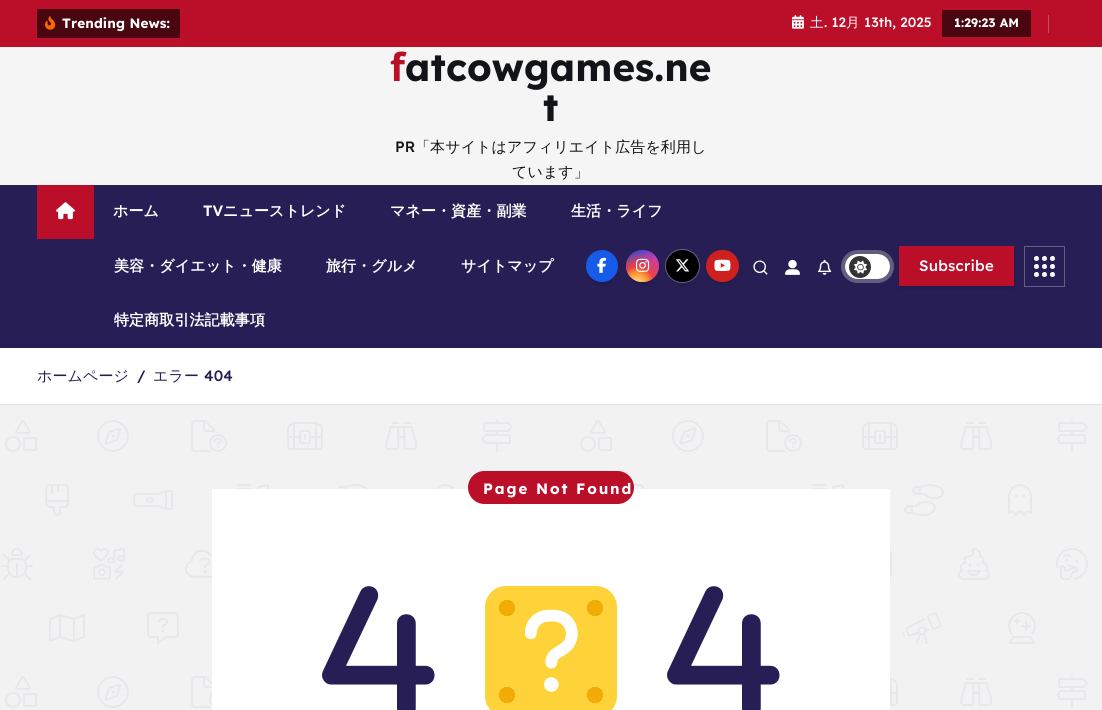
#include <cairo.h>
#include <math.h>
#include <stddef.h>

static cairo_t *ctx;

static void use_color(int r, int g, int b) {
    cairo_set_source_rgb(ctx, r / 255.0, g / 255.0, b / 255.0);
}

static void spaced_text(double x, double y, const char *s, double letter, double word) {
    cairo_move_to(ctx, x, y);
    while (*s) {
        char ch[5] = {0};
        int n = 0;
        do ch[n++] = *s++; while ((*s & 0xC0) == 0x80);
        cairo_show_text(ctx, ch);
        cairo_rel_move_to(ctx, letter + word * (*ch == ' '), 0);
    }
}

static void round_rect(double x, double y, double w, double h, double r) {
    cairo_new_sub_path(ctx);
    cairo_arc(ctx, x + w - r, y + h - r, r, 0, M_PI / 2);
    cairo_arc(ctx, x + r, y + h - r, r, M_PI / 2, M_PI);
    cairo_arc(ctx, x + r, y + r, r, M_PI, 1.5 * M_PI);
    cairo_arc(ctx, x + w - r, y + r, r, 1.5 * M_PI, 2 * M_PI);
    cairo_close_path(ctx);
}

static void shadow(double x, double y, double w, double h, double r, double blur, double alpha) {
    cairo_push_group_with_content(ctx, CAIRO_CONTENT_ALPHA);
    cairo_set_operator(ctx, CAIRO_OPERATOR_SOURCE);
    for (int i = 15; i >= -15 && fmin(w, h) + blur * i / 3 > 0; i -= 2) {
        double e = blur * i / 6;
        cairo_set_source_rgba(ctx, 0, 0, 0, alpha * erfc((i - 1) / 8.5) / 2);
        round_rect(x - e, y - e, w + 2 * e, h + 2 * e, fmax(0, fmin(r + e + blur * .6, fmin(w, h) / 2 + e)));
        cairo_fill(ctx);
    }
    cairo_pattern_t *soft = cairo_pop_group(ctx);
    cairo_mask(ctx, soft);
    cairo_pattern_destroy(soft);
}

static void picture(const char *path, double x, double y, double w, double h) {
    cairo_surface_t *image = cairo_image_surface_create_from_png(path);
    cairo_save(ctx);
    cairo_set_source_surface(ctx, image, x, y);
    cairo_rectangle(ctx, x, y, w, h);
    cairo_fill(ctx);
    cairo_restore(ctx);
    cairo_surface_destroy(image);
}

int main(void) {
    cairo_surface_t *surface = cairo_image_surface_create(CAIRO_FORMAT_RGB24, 1102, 710);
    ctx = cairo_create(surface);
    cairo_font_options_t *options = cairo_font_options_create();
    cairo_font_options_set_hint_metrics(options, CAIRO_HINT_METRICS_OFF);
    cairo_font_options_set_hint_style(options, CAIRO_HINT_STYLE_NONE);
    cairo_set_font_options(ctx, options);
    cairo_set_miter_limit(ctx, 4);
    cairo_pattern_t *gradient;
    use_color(245, 245, 245);
    cairo_paint(ctx);
    use_color(186, 14, 41);
    cairo_rectangle(ctx, 0, 0, 1102, 47);
    cairo_fill(ctx);
    use_color(74, 6, 16);
    cairo_rectangle(ctx, 37, 9, 143, 29);
    cairo_fill(ctx);
    picture("img1.png", 45, 16, 11, 14);
    cairo_select_font_face(ctx, "Lexend Deca", CAIRO_FONT_SLANT_NORMAL, CAIRO_FONT_WEIGHT_BOLD);
    cairo_set_font_size(ctx, 13.5);
    use_color(255, 255, 255);
    spaced_text(62, 28, "Trending News:", 0.1, 0);
    picture("img2.png", 792, 15, 12, 14);
    cairo_select_font_face(ctx, "WenQuanYi Zen Hei Medium", CAIRO_FONT_SLANT_NORMAL, CAIRO_FONT_WEIGHT_NORMAL);
    spaced_text(810, 27, "土", 0.1, 0);
    cairo_select_font_face(ctx, "Lexend Deca Medium", CAIRO_FONT_SLANT_NORMAL, CAIRO_FONT_WEIGHT_NORMAL);
    spaced_text(824, 27, ". 12", 0.1, 0);
    cairo_select_font_face(ctx, "WenQuanYi Zen Hei Medium", CAIRO_FONT_SLANT_NORMAL, CAIRO_FONT_WEIGHT_NORMAL);
    spaced_text(846, 27, "月", 0.1, 0);
    cairo_select_font_face(ctx, "Lexend Deca Medium", CAIRO_FONT_SLANT_NORMAL, CAIRO_FONT_WEIGHT_NORMAL);
    spaced_text(864, 27, "13th, 2025", 0.1, 0);
    use_color(74, 6, 16);
    cairo_rectangle(ctx, 942, 10, 89, 27);
    cairo_fill(ctx);
    cairo_select_font_face(ctx, "Lexend Deca", CAIRO_FONT_SLANT_NORMAL, CAIRO_FONT_WEIGHT_BOLD);
    cairo_set_font_size(ctx, 12.25);
    use_color(255, 255, 255);
    spaced_text(954, 27, "1:29:23 AM", 0.1, 0);
    use_color(187, 84, 100);
    cairo_rectangle(ctx, 1048, 15, 1, 18);
    cairo_fill(ctx);
    cairo_select_font_face(ctx, "Noto Sans", CAIRO_FONT_SLANT_NORMAL, CAIRO_FONT_WEIGHT_BOLD);
    cairo_set_font_size(ctx, 38.5);
    use_color(186, 14, 41);
    spaced_text(390, 81, "f", 0.1, 0);
    cairo_select_font_face(ctx, "Lexend Deca", CAIRO_FONT_SLANT_NORMAL, CAIRO_FONT_WEIGHT_BOLD);
    use_color(18, 20, 24);
    spaced_text(405, 81, "atcowgames.ne", 0.1, 0);
    spaced_text(543, 121, "t", 0.1, 0);
    cairo_select_font_face(ctx, "Lexend Deca Medium", CAIRO_FONT_SLANT_NORMAL, CAIRO_FONT_WEIGHT_NORMAL);
    cairo_set_font_size(ctx, 15);
    spaced_text(395, 152, "PR", 0.1, 0);
    cairo_select_font_face(ctx, "WenQuanYi Zen Hei Medium", CAIRO_FONT_SLANT_NORMAL, CAIRO_FONT_WEIGHT_NORMAL);
    spaced_text(415, 152, "「本サイトはアフィリエイト広告を利用し", 0.1, 0);
    spaced_text(512, 177, "ています」", 0.1, 0);
    use_color(39, 30, 85);
    cairo_rectangle(ctx, 0, 185, 1102, 163);
    cairo_fill(ctx);
    use_color(186, 14, 41);
    cairo_rectangle(ctx, 37, 185, 57, 54);
    cairo_fill(ctx);
    picture("img3.png", 56, 202, 19, 18);
    cairo_select_font_face(ctx, "WenQuanYi Zen Hei", CAIRO_FONT_SLANT_NORMAL, CAIRO_FONT_WEIGHT_BOLD);
    use_color(255, 255, 255);
    spaced_text(113, 216, "ホーム", 0.1, 0);
    cairo_select_font_face(ctx, "Lexend Deca SemiBold", CAIRO_FONT_SLANT_NORMAL, CAIRO_FONT_WEIGHT_NORMAL);
    spaced_text(203, 216, "TV", 0.1, 0);
    cairo_select_font_face(ctx, "WenQuanYi Zen Hei", CAIRO_FONT_SLANT_NORMAL, CAIRO_FONT_WEIGHT_BOLD);
    spaced_text(223, 216, "ニューストレンド", 0.1, 0);
    spaced_text(390, 216, "マネー・資産・副業", 0.1, 0);
    spaced_text(571, 216, "生活・ライフ", 0.1, 0);
    spaced_text(114, 271, "美容・ダイエット・健康", 0.1, 0);
    spaced_text(326, 271, "旅行・グルメ", 0.1, 0);
    spaced_text(461, 271, "サイトマップ", 0.1, 0);
    spaced_text(114, 325, "特定商取引法記載事項", 0.1, 0);
    use_color(7, 10, 25);
    shadow(587, 254, 30, 30, 15, 2.5, 0.2);
    use_color(23, 91, 235);
    cairo_arc(ctx, 602, 266, 16, 0, 2 * M_PI);
    cairo_fill(ctx);
    picture("img4.png", 597, 257, 9, 16);
    use_color(7, 10, 25);
    shadow(627, 254, 31, 30, 15, 2.5, 0.2);
    gradient = cairo_pattern_create_linear(626, 250, 659, 282);
    cairo_pattern_add_color_stop_rgba(gradient, 0.12, 0.137, 0.294, 0.843, 1);
    cairo_pattern_add_color_stop_rgba(gradient, 0.58, 0.765, 0.235, 0.745, 1);
    cairo_set_source(ctx, gradient);
    cairo_pattern_destroy(gradient);
    round_rect(626, 250, 33, 32, 16);
    cairo_fill(ctx);
    gradient = cairo_pattern_create_radial(637, 284, 0, 637, 284, 41);
    cairo_pattern_add_color_stop_rgba(gradient, 0, 1, 0.882, 0.49, 1);
    cairo_pattern_add_color_stop_rgba(gradient, 0.1, 1, 0.804, 0.412, 1);
    cairo_pattern_add_color_stop_rgba(gradient, 0.28, 0.98, 0.569, 0.216, 1);
    cairo_pattern_add_color_stop_rgba(gradient, 0.42, 0.922, 0.255, 0.255, 1);
    cairo_pattern_add_color_stop_rgba(gradient, 0.82, 0.922, 0.255, 0.255, 0);
    cairo_set_source(ctx, gradient);
    cairo_pattern_destroy(gradient);
    round_rect(626, 250, 33, 32, 16);
    cairo_fill(ctx);
    picture("img5.png", 636, 258, 14, 14);
    use_color(7, 10, 25);
    shadow(667, 254, 31, 30, 15, 2.5, 0.2);
    use_color(0, 0, 0);
    round_rect(666, 250, 33, 32, 16);
    cairo_fill(ctx);
    picture("img6.png", 675, 259, 15, 13);
    round_rect(665.5, 249.5, 34, 33, 16.5);
    cairo_set_source_rgba(ctx, 0.741, 0.741, 0.741, 0.4);
    cairo_set_line_width(ctx, 1);
    cairo_stroke(ctx);
    use_color(7, 10, 25);
    shadow(707, 254, 31, 30, 15, 2.5, 0.2);
    use_color(205, 32, 31);
    round_rect(706, 250, 33, 32, 16);
    cairo_fill(ctx);
    picture("img7.png", 714, 259, 17, 12);
    picture("img8.png", 753, 260, 15, 15);
    picture("img9.png", 785, 259, 15, 16);
    picture("img10.png", 818, 259, 14, 16);
    round_rect(843, 252, 49, 29, 14.5);
    use_color(99, 94, 127);
    cairo_set_line_width(ctx, 4);
    cairo_stroke(ctx);
    use_color(255, 255, 255);
    round_rect(845, 254, 45, 25, 12.5);
    cairo_fill(ctx);
    use_color(51, 51, 51);
    cairo_arc(ctx, 860, 267, 11, 0, 2 * M_PI);
    cairo_fill(ctx);
    picture("img11.png", 854, 260, 13, 14);
    use_color(7, 10, 25);
    shadow(900, 250, 113, 38, 0, 2.5, 0.2);
    use_color(186, 14, 41);
    cairo_rectangle(ctx, 899, 246, 115, 40);
    cairo_fill(ctx);
    cairo_select_font_face(ctx, "Lexend Deca Medium", CAIRO_FONT_SLANT_NORMAL, CAIRO_FONT_WEIGHT_NORMAL);
    use_color(255, 255, 255);
    spaced_text(919, 271, "Subscribe", 0.25, 0);
    cairo_rectangle(ctx, 1024.5, 246.5, 40, 40);
    use_color(99, 94, 127);
    cairo_set_line_width(ctx, 1);
    cairo_stroke(ctx);
    use_color(255, 255, 255);
    cairo_arc(ctx, 1036.5, 258.5, 2.5, 0, 2 * M_PI);
    cairo_fill(ctx);
    cairo_arc(ctx, 1044.5, 258.5, 2.5, 0, 2 * M_PI);
    cairo_fill(ctx);
    cairo_arc(ctx, 1052.5, 258.5, 2.5, 0, 2 * M_PI);
    cairo_fill(ctx);
    cairo_arc(ctx, 1036.5, 266.5, 2.5, 0, 2 * M_PI);
    cairo_fill(ctx);
    cairo_arc(ctx, 1044.5, 266.5, 2.5, 0, 2 * M_PI);
    cairo_fill(ctx);
    cairo_arc(ctx, 1052.5, 266.5, 2.5, 0, 2 * M_PI);
    cairo_fill(ctx);
    cairo_arc(ctx, 1036.5, 274.5, 2.5, 0, 2 * M_PI);
    cairo_fill(ctx);
    cairo_arc(ctx, 1044.5, 274.5, 2.5, 0, 2 * M_PI);
    cairo_fill(ctx);
    cairo_arc(ctx, 1052.5, 274.5, 2.5, 0, 2 * M_PI);
    cairo_fill(ctx);
    use_color(225, 225, 225);
    cairo_rectangle(ctx, 0, 404, 1102, 1);
    cairo_fill(ctx);
    use_color(255, 255, 255);
    cairo_rectangle(ctx, 0, 348, 1102, 56);
    cairo_fill(ctx);
    cairo_select_font_face(ctx, "WenQuanYi Zen Hei Medium", CAIRO_FONT_SLANT_NORMAL, CAIRO_FONT_WEIGHT_NORMAL);
    use_color(39, 30, 85);
    spaced_text(37, 381, "ホームページ", 0.1, 0);
    cairo_select_font_face(ctx, "Lexend Deca Medium", CAIRO_FONT_SLANT_NORMAL, CAIRO_FONT_WEIGHT_NORMAL);
    spaced_text(137, 381, "/", 0.1, 0);
    cairo_select_font_face(ctx, "WenQuanYi Zen Hei Medium", CAIRO_FONT_SLANT_NORMAL, CAIRO_FONT_WEIGHT_NORMAL);
    spaced_text(153, 381, "エラー", 0.1, 0);
    cairo_select_font_face(ctx, "Lexend Deca Medium", CAIRO_FONT_SLANT_NORMAL, CAIRO_FONT_WEIGHT_NORMAL);
    spaced_text(204, 381, "404", 0.1, 0);
    use_color(242, 242, 242);
    cairo_rectangle(ctx, 0, 405, 1102, 305);
    cairo_fill(ctx);
    picture("img12.png", 1, 420, 1087, 288);
    use_color(255, 255, 255);
    cairo_rectangle(ctx, 212, 489, 678, 221);
    cairo_fill(ctx);
    use_color(186, 14, 41);
    round_rect(468, 471, 166, 33, 16.5);
    cairo_fill(ctx);
    cairo_select_font_face(ctx, "Lexend Deca", CAIRO_FONT_SLANT_NORMAL, CAIRO_FONT_WEIGHT_BOLD);
    use_color(255, 255, 255);
    spaced_text(483, 494, "Page Not Fou", 1.9, 0);
    spaced_text(610, 494, "nd", 1.9, 0);
    picture("img13.png", 322, 586, 113, 124);
    use_color(254, 211, 58);
    round_rect(485, 586, 132, 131, 21);
    cairo_fill(ctx);
    gradient = cairo_pattern_create_radial(595, 695, 0, 595, 695, 8);
    cairo_pattern_add_color_stop_rgba(gradient, 1, 0.953, 0.671, 0.024, 1);
    cairo_pattern_add_color_stop_rgba(gradient, 1, 0.996, 0.827, 0.227, 1);
    cairo_set_source(ctx, gradient);
    cairo_pattern_destroy(gradient);
    cairo_rectangle(ctx, 587, 687, 16, 16);
    cairo_fill(ctx);
    gradient = cairo_pattern_create_radial(507, 695, 0, 507, 695, 8);
    cairo_pattern_add_color_stop_rgba(gradient, 1, 0.953, 0.671, 0.024, 1);
    cairo_pattern_add_color_stop_rgba(gradient, 1, 0.996, 0.827, 0.227, 1);
    cairo_set_source(ctx, gradient);
    cairo_pattern_destroy(gradient);
    cairo_rectangle(ctx, 499, 687, 16, 16);
    cairo_fill(ctx);
    gradient = cairo_pattern_create_radial(507, 608, 0, 507, 608, 8);
    cairo_pattern_add_color_stop_rgba(gradient, 1, 0.953, 0.671, 0.024, 1);
    cairo_pattern_add_color_stop_rgba(gradient, 1, 0.996, 0.827, 0.227, 1);
    cairo_set_source(ctx, gradient);
    cairo_pattern_destroy(gradient);
    cairo_rectangle(ctx, 499, 600, 16, 16);
    cairo_fill(ctx);
    gradient = cairo_pattern_create_radial(595, 608, 0, 595, 608, 8);
    cairo_pattern_add_color_stop_rgba(gradient, 1, 0.953, 0.671, 0.024, 1);
    cairo_pattern_add_color_stop_rgba(gradient, 1, 0.996, 0.827, 0.227, 1);
    cairo_set_source(ctx, gradient);
    cairo_pattern_destroy(gradient);
    cairo_rectangle(ctx, 587, 600, 16, 16);
    cairo_fill(ctx);
    picture("img14.png", 524, 609, 54, 83);
    picture("img13.png", 667, 586, 113, 124);
    cairo_surface_write_to_png(surface, "result.png");
    cairo_font_options_destroy(options);
    cairo_destroy(ctx);
    cairo_surface_destroy(surface);
    return 0;
}
